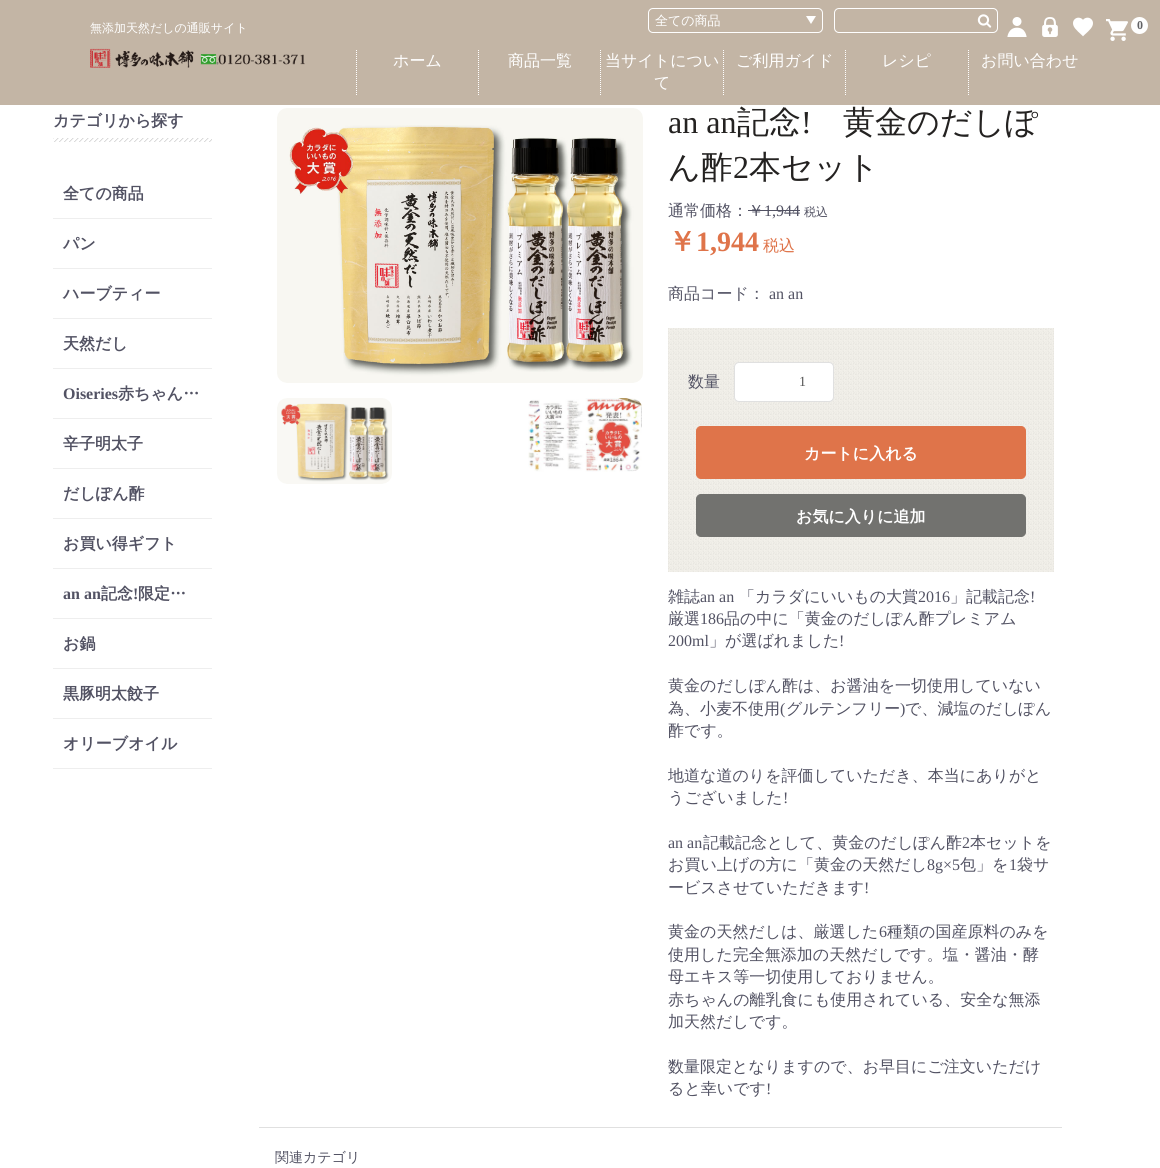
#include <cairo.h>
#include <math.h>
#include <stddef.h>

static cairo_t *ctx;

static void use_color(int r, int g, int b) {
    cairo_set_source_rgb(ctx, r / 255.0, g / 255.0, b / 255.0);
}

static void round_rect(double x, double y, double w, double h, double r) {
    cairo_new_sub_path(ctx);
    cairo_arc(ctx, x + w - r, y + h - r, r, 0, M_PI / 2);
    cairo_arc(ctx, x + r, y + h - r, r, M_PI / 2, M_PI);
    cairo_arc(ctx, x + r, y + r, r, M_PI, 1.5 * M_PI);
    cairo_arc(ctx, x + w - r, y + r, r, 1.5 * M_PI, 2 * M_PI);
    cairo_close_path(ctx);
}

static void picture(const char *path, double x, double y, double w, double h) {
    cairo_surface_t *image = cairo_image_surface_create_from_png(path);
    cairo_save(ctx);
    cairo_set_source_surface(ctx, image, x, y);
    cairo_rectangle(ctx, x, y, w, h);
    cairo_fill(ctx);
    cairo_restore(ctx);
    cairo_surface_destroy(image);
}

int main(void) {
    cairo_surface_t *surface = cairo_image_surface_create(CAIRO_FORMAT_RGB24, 1160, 1168);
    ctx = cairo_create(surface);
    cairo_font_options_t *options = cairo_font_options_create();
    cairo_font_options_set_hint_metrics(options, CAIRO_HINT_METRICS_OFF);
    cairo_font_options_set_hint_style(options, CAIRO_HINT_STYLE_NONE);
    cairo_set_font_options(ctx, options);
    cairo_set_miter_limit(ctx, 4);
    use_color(255, 255, 255);
    cairo_paint(ctx);
    use_color(195, 181, 165);
    cairo_rectangle(ctx, 0, 0, 1160, 105);
    cairo_fill(ctx);
    round_rect(648.5, 8.5, 174, 24, 4.5);
    use_color(255, 255, 255);
    cairo_set_line_width(ctx, 1);
    cairo_stroke(ctx);
    cairo_select_font_face(ctx, "WenQuanYi Zen Hei Medium", CAIRO_FONT_SLANT_NORMAL, CAIRO_FONT_WEIGHT_NORMAL);
    cairo_set_font_size(ctx, 13);
    cairo_move_to(ctx, 655, 25);
    cairo_show_text(ctx, "全ての商品");
    cairo_new_path(ctx);
    cairo_move_to(ctx, 806, 16);
    cairo_line_to(ctx, 816, 16);
    cairo_line_to(ctx, 811, 24);
    cairo_close_path(ctx);
    cairo_fill(ctx);
    round_rect(834.5, 8.5, 163, 24, 4.5);
    cairo_stroke(ctx);
    picture("img1.png", 977, 14, 15, 14);
    picture("img2.png", 1007, 17, 20, 20);
    picture("img3.png", 1042, 17, 16, 20);
    picture("img4.png", 1073, 17, 20, 20);
    picture("img5.png", 1106, 19, 22, 22);
    cairo_arc(ctx, 1139.5, 25.5, 8.5, 0, 2 * M_PI);
    cairo_fill(ctx);
    cairo_select_font_face(ctx, "Liberation Serif", CAIRO_FONT_SLANT_NORMAL, CAIRO_FONT_WEIGHT_BOLD);
    cairo_set_font_size(ctx, 12);
    use_color(98, 98, 101);
    cairo_move_to(ctx, 1137, 29);
    cairo_show_text(ctx, "0");
    cairo_select_font_face(ctx, "WenQuanYi Zen Hei Medium", CAIRO_FONT_SLANT_NORMAL, CAIRO_FONT_WEIGHT_NORMAL);
    use_color(255, 255, 255);
    cairo_move_to(ctx, 90, 32);
    cairo_show_text(ctx, "無添加天然だしの通販サイト");
    picture("img6.png", 90, 48, 215, 20);
    cairo_new_path(ctx);
    cairo_move_to(ctx, 356.5, 50);
    cairo_line_to(ctx, 356.5, 95);
    cairo_set_dash(ctx, (double[]){1, 1}, 2, 0);
    cairo_stroke(ctx);
    cairo_set_font_size(ctx, 16);
    cairo_move_to(ctx, 393, 66);
    cairo_show_text(ctx, "ホーム");
    cairo_new_path(ctx);
    cairo_move_to(ctx, 478.5, 50);
    cairo_line_to(ctx, 478.5, 95);
    cairo_stroke(ctx);
    cairo_move_to(ctx, 508, 66);
    cairo_show_text(ctx, "商品一覧");
    cairo_new_path(ctx);
    cairo_move_to(ctx, 600.5, 50);
    cairo_line_to(ctx, 600.5, 95);
    cairo_stroke(ctx);
    cairo_move_to(ctx, 605, 66);
    cairo_show_text(ctx, "当サイトについ");
    cairo_move_to(ctx, 654, 88);
    cairo_show_text(ctx, "て");
    cairo_new_path(ctx);
    cairo_move_to(ctx, 723.5, 50);
    cairo_line_to(ctx, 723.5, 95);
    cairo_stroke(ctx);
    cairo_move_to(ctx, 736, 66);
    cairo_show_text(ctx, "ご利用ガイド");
    cairo_new_path(ctx);
    cairo_move_to(ctx, 845.5, 50);
    cairo_line_to(ctx, 845.5, 95);
    cairo_stroke(ctx);
    cairo_move_to(ctx, 882, 66);
    cairo_show_text(ctx, "レシピ");
    cairo_new_path(ctx);
    cairo_move_to(ctx, 968.5, 50);
    cairo_line_to(ctx, 968.5, 95);
    cairo_stroke(ctx);
    cairo_move_to(ctx, 981, 66);
    cairo_show_text(ctx, "お問い合わせ");
    picture("img7.png", 53, 138, 159, 4);
    cairo_select_font_face(ctx, "WenQuanYi Zen Hei", CAIRO_FONT_SLANT_NORMAL, CAIRO_FONT_WEIGHT_BOLD);
    use_color(82, 82, 99);
    cairo_move_to(ctx, 53, 126);
    cairo_show_text(ctx, "カテゴリから探す");
    use_color(238, 238, 238);
    cairo_rectangle(ctx, 53, 218, 159, 1);
    cairo_fill(ctx);
    use_color(82, 82, 99);
    cairo_move_to(ctx, 63, 199);
    cairo_show_text(ctx, "全ての商品");
    use_color(238, 238, 238);
    cairo_rectangle(ctx, 53, 268, 159, 1);
    cairo_fill(ctx);
    use_color(82, 82, 99);
    cairo_move_to(ctx, 63, 249);
    cairo_show_text(ctx, "パン");
    use_color(238, 238, 238);
    cairo_rectangle(ctx, 53, 318, 159, 1);
    cairo_fill(ctx);
    use_color(82, 82, 99);
    cairo_move_to(ctx, 63, 299);
    cairo_show_text(ctx, "ハーブティー");
    use_color(238, 238, 238);
    cairo_rectangle(ctx, 53, 368, 159, 1);
    cairo_fill(ctx);
    use_color(82, 82, 99);
    cairo_move_to(ctx, 63, 349);
    cairo_show_text(ctx, "天然だし");
    use_color(238, 238, 238);
    cairo_rectangle(ctx, 53, 418, 159, 1);
    cairo_fill(ctx);
    cairo_select_font_face(ctx, "Liberation Serif", CAIRO_FONT_SLANT_NORMAL, CAIRO_FONT_WEIGHT_BOLD);
    use_color(82, 82, 99);
    cairo_move_to(ctx, 63, 399);
    cairo_show_text(ctx, "Oiseries");
    cairo_select_font_face(ctx, "WenQuanYi Zen Hei", CAIRO_FONT_SLANT_NORMAL, CAIRO_FONT_WEIGHT_BOLD);
    cairo_move_to(ctx, 118, 399);
    cairo_show_text(ctx, "赤ちゃん…");
    use_color(238, 238, 238);
    cairo_rectangle(ctx, 53, 468, 159, 1);
    cairo_fill(ctx);
    use_color(82, 82, 99);
    cairo_move_to(ctx, 63, 449);
    cairo_show_text(ctx, "辛子明太子");
    use_color(238, 238, 238);
    cairo_rectangle(ctx, 53, 518, 159, 1);
    cairo_fill(ctx);
    use_color(82, 82, 99);
    cairo_move_to(ctx, 63, 499);
    cairo_show_text(ctx, "だしぽん酢");
    use_color(238, 238, 238);
    cairo_rectangle(ctx, 53, 568, 159, 1);
    cairo_fill(ctx);
    use_color(82, 82, 99);
    cairo_move_to(ctx, 63, 549);
    cairo_show_text(ctx, "お買い得ギフト");
    use_color(238, 238, 238);
    cairo_rectangle(ctx, 53, 618, 159, 1);
    cairo_fill(ctx);
    cairo_select_font_face(ctx, "Liberation Serif", CAIRO_FONT_SLANT_NORMAL, CAIRO_FONT_WEIGHT_BOLD);
    use_color(82, 82, 99);
    cairo_move_to(ctx, 63, 599);
    cairo_show_text(ctx, "an an");
    cairo_select_font_face(ctx, "WenQuanYi Zen Hei", CAIRO_FONT_SLANT_NORMAL, CAIRO_FONT_WEIGHT_BOLD);
    cairo_move_to(ctx, 101, 599);
    cairo_show_text(ctx, "記念");
    cairo_select_font_face(ctx, "Liberation Serif", CAIRO_FONT_SLANT_NORMAL, CAIRO_FONT_WEIGHT_BOLD);
    cairo_move_to(ctx, 133, 599);
    cairo_show_text(ctx, "!");
    cairo_select_font_face(ctx, "WenQuanYi Zen Hei", CAIRO_FONT_SLANT_NORMAL, CAIRO_FONT_WEIGHT_BOLD);
    cairo_move_to(ctx, 138, 599);
    cairo_show_text(ctx, "限定…");
    use_color(238, 238, 238);
    cairo_rectangle(ctx, 53, 668, 159, 1);
    cairo_fill(ctx);
    use_color(82, 82, 99);
    cairo_move_to(ctx, 63, 649);
    cairo_show_text(ctx, "お鍋");
    use_color(238, 238, 238);
    cairo_rectangle(ctx, 53, 718, 159, 1);
    cairo_fill(ctx);
    use_color(82, 82, 99);
    cairo_move_to(ctx, 63, 699);
    cairo_show_text(ctx, "黒豚明太餃子");
    use_color(238, 238, 238);
    cairo_rectangle(ctx, 53, 768, 159, 1);
    cairo_fill(ctx);
    use_color(82, 82, 99);
    cairo_move_to(ctx, 63, 749);
    cairo_show_text(ctx, "オリーブオイル");
    picture("img8.png", 277, 108, 366, 275);
    picture("img9.png", 277, 398, 115, 86);
    picture("img10.png", 528, 398, 114, 74);
    cairo_select_font_face(ctx, "Liberation Serif", CAIRO_FONT_SLANT_NORMAL, CAIRO_FONT_WEIGHT_NORMAL);
    cairo_set_font_size(ctx, 32);
    use_color(36, 34, 33);
    cairo_move_to(ctx, 668, 133);
    cairo_show_text(ctx, "an an");
    cairo_select_font_face(ctx, "WenQuanYi Zen Hei Medium", CAIRO_FONT_SLANT_NORMAL, CAIRO_FONT_WEIGHT_NORMAL);
    cairo_move_to(ctx, 737, 133);
    cairo_show_text(ctx, "記念");
    cairo_select_font_face(ctx, "Liberation Serif", CAIRO_FONT_SLANT_NORMAL, CAIRO_FONT_WEIGHT_NORMAL);
    cairo_move_to(ctx, 801, 133);
    cairo_show_text(ctx, "!");
    cairo_select_font_face(ctx, "WenQuanYi Zen Hei Medium", CAIRO_FONT_SLANT_NORMAL, CAIRO_FONT_WEIGHT_NORMAL);
    cairo_move_to(ctx, 843, 133);
    cairo_show_text(ctx, "黄金のだしぽ");
    cairo_move_to(ctx, 668, 178);
    cairo_show_text(ctx, "ん酢");
    cairo_select_font_face(ctx, "Liberation Serif", CAIRO_FONT_SLANT_NORMAL, CAIRO_FONT_WEIGHT_NORMAL);
    cairo_move_to(ctx, 733, 178);
    cairo_show_text(ctx, "2");
    cairo_select_font_face(ctx, "WenQuanYi Zen Hei Medium", CAIRO_FONT_SLANT_NORMAL, CAIRO_FONT_WEIGHT_NORMAL);
    cairo_move_to(ctx, 749, 178);
    cairo_show_text(ctx, "本セット");
    cairo_set_font_size(ctx, 16);
    use_color(82, 82, 99);
    cairo_move_to(ctx, 668, 216);
    cairo_show_text(ctx, "通常価格：￥");
    cairo_rectangle(ctx, 748, 210, 52, 1);
    cairo_fill(ctx);
    cairo_select_font_face(ctx, "Liberation Serif", CAIRO_FONT_SLANT_NORMAL, CAIRO_FONT_WEIGHT_NORMAL);
    cairo_move_to(ctx, 764, 216);
    cairo_show_text(ctx, "1,944");
    cairo_select_font_face(ctx, "WenQuanYi Zen Hei Medium", CAIRO_FONT_SLANT_NORMAL, CAIRO_FONT_WEIGHT_NORMAL);
    cairo_set_font_size(ctx, 12);
    cairo_move_to(ctx, 804, 216);
    cairo_show_text(ctx, "税込");
    cairo_select_font_face(ctx, "WenQuanYi Zen Hei", CAIRO_FONT_SLANT_NORMAL, CAIRO_FONT_WEIGHT_BOLD);
    cairo_set_font_size(ctx, 28);
    use_color(223, 116, 74);
    cairo_move_to(ctx, 668, 251);
    cairo_show_text(ctx, "￥");
    cairo_select_font_face(ctx, "Liberation Serif", CAIRO_FONT_SLANT_NORMAL, CAIRO_FONT_WEIGHT_BOLD);
    cairo_move_to(ctx, 696, 251);
    cairo_show_text(ctx, "1,944");
    cairo_select_font_face(ctx, "WenQuanYi Zen Hei Medium", CAIRO_FONT_SLANT_NORMAL, CAIRO_FONT_WEIGHT_NORMAL);
    cairo_set_font_size(ctx, 16);
    cairo_move_to(ctx, 763, 251);
    cairo_show_text(ctx, "税込");
    use_color(82, 82, 99);
    cairo_move_to(ctx, 668, 299);
    cairo_show_text(ctx, "商品コード：");
    cairo_select_font_face(ctx, "Liberation Serif", CAIRO_FONT_SLANT_NORMAL, CAIRO_FONT_WEIGHT_NORMAL);
    cairo_move_to(ctx, 769, 299);
    cairo_show_text(ctx, "an an");
    picture("img11.png", 668, 328, 386, 244);
    cairo_select_font_face(ctx, "WenQuanYi Zen Hei Medium", CAIRO_FONT_SLANT_NORMAL, CAIRO_FONT_WEIGHT_NORMAL);
    cairo_move_to(ctx, 688, 387);
    cairo_show_text(ctx, "数量");
    use_color(255, 255, 255);
    round_rect(734.5, 362.5, 99, 39, 4.5);
    cairo_fill_preserve(ctx);
    use_color(224, 224, 224);
    cairo_set_dash(ctx, NULL, 0, 0);
    cairo_stroke(ctx);
    cairo_select_font_face(ctx, "Liberation Serif", CAIRO_FONT_SLANT_NORMAL, CAIRO_FONT_WEIGHT_NORMAL);
    cairo_set_font_size(ctx, 14);
    use_color(85, 85, 85);
    cairo_move_to(ctx, 799, 386);
    cairo_show_text(ctx, "1");
    use_color(223, 116, 74);
    round_rect(696.5, 426.5, 329, 52, 4.5);
    cairo_fill_preserve(ctx);
    cairo_stroke(ctx);
    cairo_select_font_face(ctx, "WenQuanYi Zen Hei", CAIRO_FONT_SLANT_NORMAL, CAIRO_FONT_WEIGHT_BOLD);
    cairo_set_font_size(ctx, 16);
    use_color(255, 255, 255);
    cairo_move_to(ctx, 804, 459);
    cairo_show_text(ctx, "カートに入れる");
    use_color(114, 114, 111);
    round_rect(696.5, 494.5, 329, 42, 4.5);
    cairo_fill_preserve(ctx);
    cairo_stroke(ctx);
    use_color(255, 255, 255);
    cairo_move_to(ctx, 796, 522);
    cairo_show_text(ctx, "お気に入りに追加");
    cairo_select_font_face(ctx, "WenQuanYi Zen Hei Medium", CAIRO_FONT_SLANT_NORMAL, CAIRO_FONT_WEIGHT_NORMAL);
    use_color(82, 82, 99);
    cairo_move_to(ctx, 668, 602);
    cairo_show_text(ctx, "雑誌");
    cairo_select_font_face(ctx, "Liberation Serif", CAIRO_FONT_SLANT_NORMAL, CAIRO_FONT_WEIGHT_NORMAL);
    cairo_move_to(ctx, 700, 602);
    cairo_show_text(ctx, "an an");
    cairo_select_font_face(ctx, "WenQuanYi Zen Hei Medium", CAIRO_FONT_SLANT_NORMAL, CAIRO_FONT_WEIGHT_NORMAL);
    cairo_move_to(ctx, 739, 602);
    cairo_show_text(ctx, "「カラダにいいもの大賞");
    cairo_select_font_face(ctx, "Liberation Serif", CAIRO_FONT_SLANT_NORMAL, CAIRO_FONT_WEIGHT_NORMAL);
    cairo_move_to(ctx, 918, 602);
    cairo_show_text(ctx, "2016");
    cairo_select_font_face(ctx, "WenQuanYi Zen Hei Medium", CAIRO_FONT_SLANT_NORMAL, CAIRO_FONT_WEIGHT_NORMAL);
    cairo_move_to(ctx, 950, 602);
    cairo_show_text(ctx, "」記載記念");
    cairo_select_font_face(ctx, "Liberation Serif", CAIRO_FONT_SLANT_NORMAL, CAIRO_FONT_WEIGHT_NORMAL);
    cairo_move_to(ctx, 1030, 602);
    cairo_show_text(ctx, "!");
    cairo_select_font_face(ctx, "WenQuanYi Zen Hei Medium", CAIRO_FONT_SLANT_NORMAL, CAIRO_FONT_WEIGHT_NORMAL);
    cairo_move_to(ctx, 668, 624);
    cairo_show_text(ctx, "厳選");
    cairo_select_font_face(ctx, "Liberation Serif", CAIRO_FONT_SLANT_NORMAL, CAIRO_FONT_WEIGHT_NORMAL);
    cairo_move_to(ctx, 700, 624);
    cairo_show_text(ctx, "186");
    cairo_select_font_face(ctx, "WenQuanYi Zen Hei Medium", CAIRO_FONT_SLANT_NORMAL, CAIRO_FONT_WEIGHT_NORMAL);
    cairo_move_to(ctx, 724, 624);
    cairo_show_text(ctx, "品の中に「黄金のだしぽん酢プレミアム");
    cairo_select_font_face(ctx, "Liberation Serif", CAIRO_FONT_SLANT_NORMAL, CAIRO_FONT_WEIGHT_NORMAL);
    cairo_move_to(ctx, 668, 646);
    cairo_show_text(ctx, "200ml");
    cairo_select_font_face(ctx, "WenQuanYi Zen Hei Medium", CAIRO_FONT_SLANT_NORMAL, CAIRO_FONT_WEIGHT_NORMAL);
    cairo_move_to(ctx, 709, 646);
    cairo_show_text(ctx, "」が選ばれました");
    cairo_select_font_face(ctx, "Liberation Serif", CAIRO_FONT_SLANT_NORMAL, CAIRO_FONT_WEIGHT_NORMAL);
    cairo_move_to(ctx, 839, 646);
    cairo_show_text(ctx, "!");
    cairo_select_font_face(ctx, "WenQuanYi Zen Hei Medium", CAIRO_FONT_SLANT_NORMAL, CAIRO_FONT_WEIGHT_NORMAL);
    cairo_move_to(ctx, 668, 691);
    cairo_show_text(ctx, "黄金のだしぽん酢は、お醤油を一切使用していない");
    cairo_move_to(ctx, 668, 714);
    cairo_show_text(ctx, "為、小麦不使用");
    cairo_select_font_face(ctx, "Liberation Serif", CAIRO_FONT_SLANT_NORMAL, CAIRO_FONT_WEIGHT_NORMAL);
    cairo_move_to(ctx, 780, 714);
    cairo_show_text(ctx, "(");
    cairo_select_font_face(ctx, "WenQuanYi Zen Hei Medium", CAIRO_FONT_SLANT_NORMAL, CAIRO_FONT_WEIGHT_NORMAL);
    cairo_move_to(ctx, 786, 714);
    cairo_show_text(ctx, "グルテンフリー");
    cairo_select_font_face(ctx, "Liberation Serif", CAIRO_FONT_SLANT_NORMAL, CAIRO_FONT_WEIGHT_NORMAL);
    cairo_move_to(ctx, 900, 714);
    cairo_show_text(ctx, ")");
    cairo_select_font_face(ctx, "WenQuanYi Zen Hei Medium", CAIRO_FONT_SLANT_NORMAL, CAIRO_FONT_WEIGHT_NORMAL);
    cairo_move_to(ctx, 905, 714);
    cairo_show_text(ctx, "で、減塩のだしぽん");
    cairo_move_to(ctx, 668, 736);
    cairo_show_text(ctx, "酢です。");
    cairo_move_to(ctx, 668, 781);
    cairo_show_text(ctx, "地道な道のりを評価していただき、本当にありがと");
    cairo_move_to(ctx, 668, 803);
    cairo_show_text(ctx, "うございました");
    cairo_select_font_face(ctx, "Liberation Serif", CAIRO_FONT_SLANT_NORMAL, CAIRO_FONT_WEIGHT_NORMAL);
    cairo_move_to(ctx, 783, 803);
    cairo_show_text(ctx, "!");
    cairo_move_to(ctx, 668, 848);
    cairo_show_text(ctx, "an an");
    cairo_select_font_face(ctx, "WenQuanYi Zen Hei Medium", CAIRO_FONT_SLANT_NORMAL, CAIRO_FONT_WEIGHT_NORMAL);
    cairo_move_to(ctx, 703, 848);
    cairo_show_text(ctx, "記載記念として、黄金のだしぽん酢");
    cairo_select_font_face(ctx, "Liberation Serif", CAIRO_FONT_SLANT_NORMAL, CAIRO_FONT_WEIGHT_NORMAL);
    cairo_move_to(ctx, 962, 848);
    cairo_show_text(ctx, "2");
    cairo_select_font_face(ctx, "WenQuanYi Zen Hei Medium", CAIRO_FONT_SLANT_NORMAL, CAIRO_FONT_WEIGHT_NORMAL);
    cairo_move_to(ctx, 970, 848);
    cairo_show_text(ctx, "本セットを");
    cairo_move_to(ctx, 668, 870);
    cairo_show_text(ctx, "お買い上げの方に「黄金の天然だし");
    cairo_select_font_face(ctx, "Liberation Serif", CAIRO_FONT_SLANT_NORMAL, CAIRO_FONT_WEIGHT_NORMAL);
    cairo_move_to(ctx, 927, 870);
    cairo_show_text(ctx, "8g×5");
    cairo_select_font_face(ctx, "WenQuanYi Zen Hei Medium", CAIRO_FONT_SLANT_NORMAL, CAIRO_FONT_WEIGHT_NORMAL);
    cairo_move_to(ctx, 960, 870);
    cairo_show_text(ctx, "包」を");
    cairo_select_font_face(ctx, "Liberation Serif", CAIRO_FONT_SLANT_NORMAL, CAIRO_FONT_WEIGHT_NORMAL);
    cairo_move_to(ctx, 1009, 870);
    cairo_show_text(ctx, "1");
    cairo_select_font_face(ctx, "WenQuanYi Zen Hei Medium", CAIRO_FONT_SLANT_NORMAL, CAIRO_FONT_WEIGHT_NORMAL);
    cairo_move_to(ctx, 1017, 870);
    cairo_show_text(ctx, "袋サ");
    cairo_move_to(ctx, 668, 893);
    cairo_show_text(ctx, "ービスさせていただきます");
    cairo_select_font_face(ctx, "Liberation Serif", CAIRO_FONT_SLANT_NORMAL, CAIRO_FONT_WEIGHT_NORMAL);
    cairo_move_to(ctx, 864, 893);
    cairo_show_text(ctx, "!");
    cairo_select_font_face(ctx, "WenQuanYi Zen Hei Medium", CAIRO_FONT_SLANT_NORMAL, CAIRO_FONT_WEIGHT_NORMAL);
    cairo_move_to(ctx, 668, 937);
    cairo_show_text(ctx, "黄金の天然だしは、厳選した");
    cairo_select_font_face(ctx, "Liberation Serif", CAIRO_FONT_SLANT_NORMAL, CAIRO_FONT_WEIGHT_NORMAL);
    cairo_move_to(ctx, 879, 937);
    cairo_show_text(ctx, "6");
    cairo_select_font_face(ctx, "WenQuanYi Zen Hei Medium", CAIRO_FONT_SLANT_NORMAL, CAIRO_FONT_WEIGHT_NORMAL);
    cairo_move_to(ctx, 887, 937);
    cairo_show_text(ctx, "種類の国産原料のみを");
    cairo_move_to(ctx, 668, 960);
    cairo_show_text(ctx, "使用した完全無添加の天然だしです。塩・醤油・酵");
    cairo_move_to(ctx, 668, 982);
    cairo_show_text(ctx, "母エキス等一切使用しておりません。");
    cairo_move_to(ctx, 668, 1005);
    cairo_show_text(ctx, "赤ちゃんの離乳食にも使用されている、安全な無添");
    cairo_move_to(ctx, 668, 1027);
    cairo_show_text(ctx, "加天然だしです。");
    cairo_move_to(ctx, 668, 1072);
    cairo_show_text(ctx, "数量限定となりますので、お早目にご注文いただけ");
    cairo_move_to(ctx, 668, 1094);
    cairo_show_text(ctx, "ると幸いです");
    cairo_select_font_face(ctx, "Liberation Serif", CAIRO_FONT_SLANT_NORMAL, CAIRO_FONT_WEIGHT_NORMAL);
    cairo_move_to(ctx, 766, 1094);
    cairo_show_text(ctx, "!");
    use_color(224, 224, 224);
    cairo_rectangle(ctx, 259, 1127, 803, 1);
    cairo_fill(ctx);
    cairo_select_font_face(ctx, "WenQuanYi Zen Hei Medium", CAIRO_FONT_SLANT_NORMAL, CAIRO_FONT_WEIGHT_NORMAL);
    cairo_set_font_size(ctx, 14);
    use_color(82, 82, 99);
    cairo_move_to(ctx, 275, 1162);
    cairo_show_text(ctx, "関連カテゴリ");
    cairo_surface_write_to_png(surface, "result.png");
    cairo_font_options_destroy(options);
    cairo_destroy(ctx);
    cairo_surface_destroy(surface);
    return 0;
}
